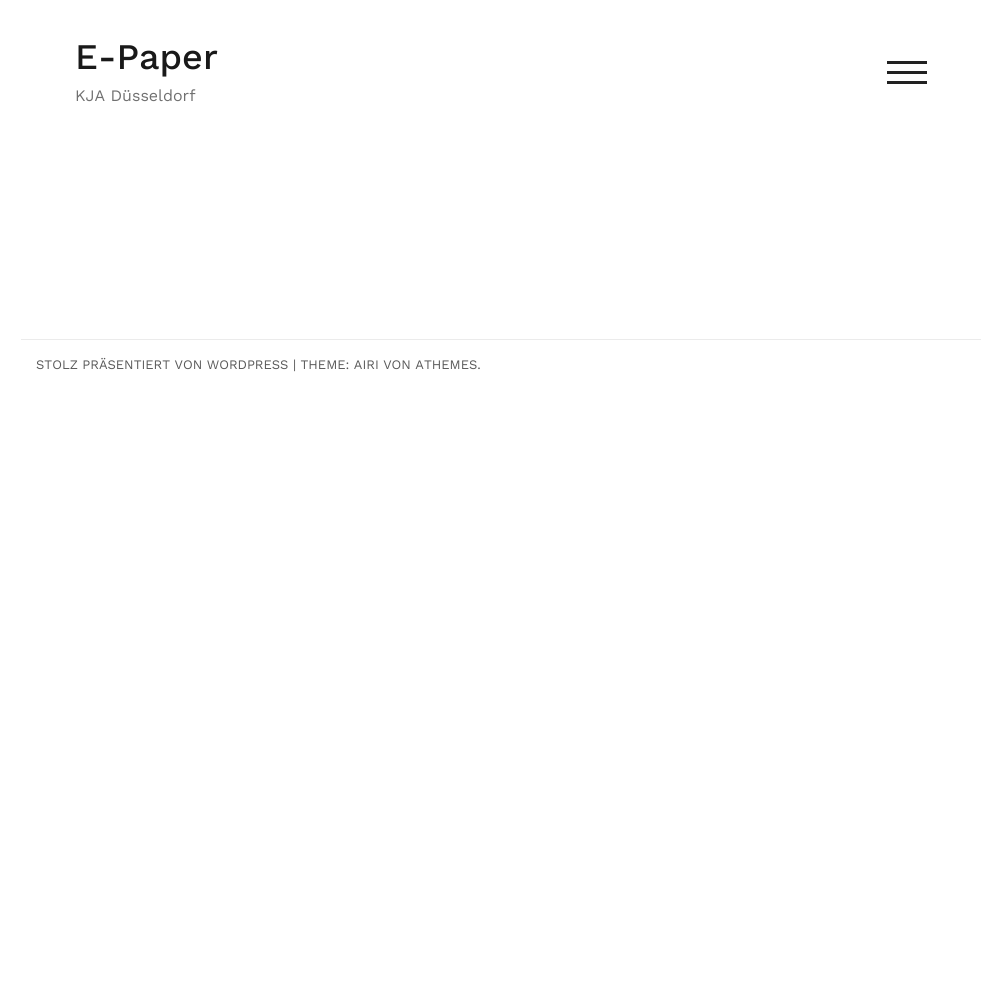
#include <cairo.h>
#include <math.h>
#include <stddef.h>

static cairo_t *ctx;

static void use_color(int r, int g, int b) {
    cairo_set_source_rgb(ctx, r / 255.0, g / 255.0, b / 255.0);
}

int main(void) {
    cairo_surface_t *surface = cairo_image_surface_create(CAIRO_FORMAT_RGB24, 1002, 999);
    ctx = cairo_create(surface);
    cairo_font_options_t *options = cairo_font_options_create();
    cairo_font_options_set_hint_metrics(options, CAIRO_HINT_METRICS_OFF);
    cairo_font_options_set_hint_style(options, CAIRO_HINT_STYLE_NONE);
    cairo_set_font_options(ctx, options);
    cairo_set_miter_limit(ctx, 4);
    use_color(255, 255, 255);
    cairo_paint(ctx);
    cairo_select_font_face(ctx, "Work Sans Medium", CAIRO_FONT_SLANT_NORMAL, CAIRO_FONT_WEIGHT_NORMAL);
    cairo_set_font_size(ctx, 36);
    use_color(25, 25, 25);
    cairo_move_to(ctx, 75, 69);
    cairo_show_text(ctx, "E-Paper");
    cairo_select_font_face(ctx, "Work Sans", CAIRO_FONT_SLANT_NORMAL, CAIRO_FONT_WEIGHT_NORMAL);
    cairo_set_font_size(ctx, 16);
    use_color(112, 112, 112);
    cairo_move_to(ctx, 75, 101);
    cairo_show_text(ctx, "KJA Düsseldorf");
    use_color(33, 33, 33);
    cairo_rectangle(ctx, 887, 71, 40, 3);
    cairo_fill(ctx);
    cairo_rectangle(ctx, 887, 61, 40, 3);
    cairo_fill(ctx);
    cairo_rectangle(ctx, 887, 81, 40, 3);
    cairo_fill(ctx);
    use_color(235, 235, 235);
    cairo_rectangle(ctx, 21, 339, 960, 1);
    cairo_fill(ctx);
    cairo_set_font_size(ctx, 13);
    use_color(89, 89, 89);
    cairo_move_to(ctx, 36, 369);
    cairo_show_text(ctx, "STOLZ PRÄSENTIERT VON WORDPRESS | THEME: AIRI VON ATHEMES.");
    cairo_surface_write_to_png(surface, "result.png");
    cairo_font_options_destroy(options);
    cairo_destroy(ctx);
    cairo_surface_destroy(surface);
    return 0;
}
